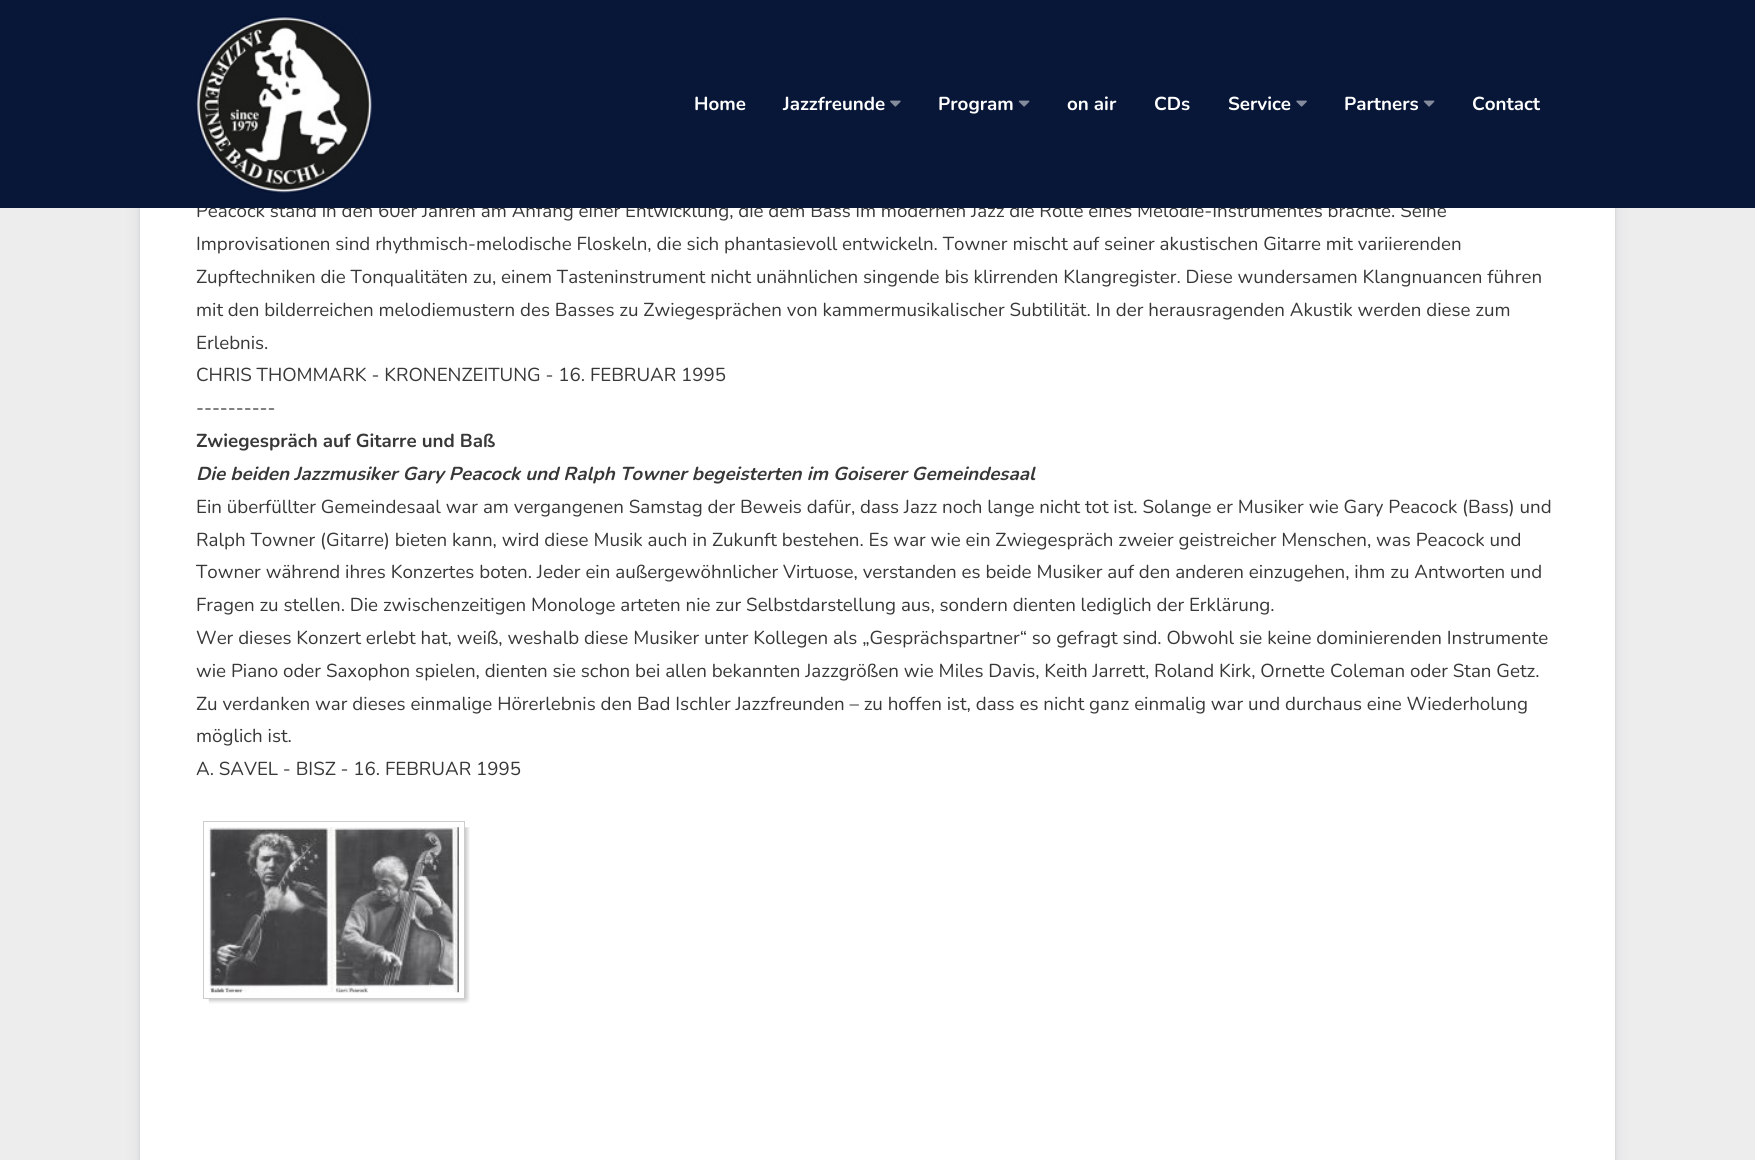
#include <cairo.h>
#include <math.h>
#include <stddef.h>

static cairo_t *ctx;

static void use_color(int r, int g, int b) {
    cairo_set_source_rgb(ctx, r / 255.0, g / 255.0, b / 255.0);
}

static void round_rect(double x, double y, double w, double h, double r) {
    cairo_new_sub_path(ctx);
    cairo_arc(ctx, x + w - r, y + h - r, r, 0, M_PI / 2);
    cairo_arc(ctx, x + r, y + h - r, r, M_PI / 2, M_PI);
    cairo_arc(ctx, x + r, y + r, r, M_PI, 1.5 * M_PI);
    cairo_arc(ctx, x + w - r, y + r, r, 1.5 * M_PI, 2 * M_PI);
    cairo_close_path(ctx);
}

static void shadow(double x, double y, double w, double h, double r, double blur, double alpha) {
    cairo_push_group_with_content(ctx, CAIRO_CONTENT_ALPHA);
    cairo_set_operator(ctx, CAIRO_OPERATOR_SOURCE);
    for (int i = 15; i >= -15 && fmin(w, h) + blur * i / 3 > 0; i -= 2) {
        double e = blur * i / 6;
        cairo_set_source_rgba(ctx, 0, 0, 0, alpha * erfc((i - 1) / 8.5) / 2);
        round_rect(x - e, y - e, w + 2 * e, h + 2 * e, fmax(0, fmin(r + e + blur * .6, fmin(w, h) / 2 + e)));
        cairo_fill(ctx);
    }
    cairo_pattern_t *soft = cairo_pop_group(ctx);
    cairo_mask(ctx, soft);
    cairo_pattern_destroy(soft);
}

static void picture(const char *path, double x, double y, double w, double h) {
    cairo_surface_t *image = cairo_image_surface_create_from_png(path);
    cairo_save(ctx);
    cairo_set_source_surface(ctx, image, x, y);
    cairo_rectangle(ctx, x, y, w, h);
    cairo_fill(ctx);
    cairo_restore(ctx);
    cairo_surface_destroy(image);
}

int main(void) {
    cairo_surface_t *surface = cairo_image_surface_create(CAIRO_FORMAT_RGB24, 1755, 1160);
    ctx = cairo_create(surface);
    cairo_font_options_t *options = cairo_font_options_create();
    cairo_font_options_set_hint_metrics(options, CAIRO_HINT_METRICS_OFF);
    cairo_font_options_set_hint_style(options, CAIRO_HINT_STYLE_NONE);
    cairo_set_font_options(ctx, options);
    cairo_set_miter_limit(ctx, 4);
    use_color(237, 237, 237);
    cairo_paint(ctx);
    use_color(52, 58, 67);
    shadow(140, -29, 1475, 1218, 0, 9.5, 0.08);
    shadow(140, -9, 1475, 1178, 0, 3, 0.08);
    shadow(140, -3, 1475, 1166, 0, 1, 0.1);
    use_color(255, 255, 255);
    cairo_rectangle(ctx, 140, 208, 1475, 952);
    cairo_fill(ctx);
    cairo_select_font_face(ctx, "Nunito", CAIRO_FONT_SLANT_NORMAL, CAIRO_FONT_WEIGHT_NORMAL);
    cairo_set_font_size(ctx, 18.75);
    use_color(56, 56, 56);
    cairo_move_to(ctx, 196, 217);
    cairo_show_text(ctx, "Peacock stand in den 60er Jahren am Anfang einer Entwicklung, die dem Bass im modernen Jazz die Rolle eines Melodie-Instrumentes brachte. Seine");
    use_color(8, 23, 56);
    cairo_rectangle(ctx, 0, 0, 1755, 208);
    cairo_fill(ctx);
    picture("img1.png", 196, 15, 176, 178);
    cairo_select_font_face(ctx, "Nunito", CAIRO_FONT_SLANT_NORMAL, CAIRO_FONT_WEIGHT_BOLD);
    use_color(255, 255, 255);
    cairo_move_to(ctx, 694, 110);
    cairo_show_text(ctx, "Home");
    cairo_move_to(ctx, 783, 110);
    cairo_show_text(ctx, "Jazzfreunde");
    picture("img2.png", 890, 100, 11, 7);
    cairo_move_to(ctx, 938, 110);
    cairo_show_text(ctx, "Program");
    picture("img3.png", 1018, 100, 12, 7);
    cairo_move_to(ctx, 1067, 110);
    cairo_show_text(ctx, "on air");
    cairo_move_to(ctx, 1154, 110);
    cairo_show_text(ctx, "CDs");
    cairo_move_to(ctx, 1228, 110);
    cairo_show_text(ctx, "Service");
    picture("img4.png", 1296, 100, 11, 7);
    cairo_move_to(ctx, 1344, 110);
    cairo_show_text(ctx, "Partners");
    picture("img3.png", 1423, 100, 12, 7);
    cairo_move_to(ctx, 1472, 110);
    cairo_show_text(ctx, "Contact");
    cairo_select_font_face(ctx, "Nunito", CAIRO_FONT_SLANT_NORMAL, CAIRO_FONT_WEIGHT_NORMAL);
    use_color(56, 56, 56);
    cairo_move_to(ctx, 196, 250);
    cairo_show_text(ctx, "Improvisationen sind rhythmisch-melodische Floskeln, die sich phantasievoll entwickeln. Towner mischt auf seiner akustischen Gitarre mit variierenden");
    cairo_move_to(ctx, 196, 283);
    cairo_show_text(ctx, "Zupftechniken die Tonqualitäten zu, einem Tasteninstrument nicht unähnlichen singende bis klirrenden Klangregister. Diese wundersamen Klangnuancen führen");
    cairo_move_to(ctx, 196, 316);
    cairo_show_text(ctx, "mit den bilderreichen melodiemustern des Basses zu Zwiegesprächen von kammermusikalischer Subtilität. In der herausragenden Akustik werden diese zum");
    cairo_move_to(ctx, 196, 349);
    cairo_show_text(ctx, "Erlebnis.");
    cairo_move_to(ctx, 196, 381);
    cairo_show_text(ctx, "CHRIS THOMMARK - KRONENZEITUNG - 16. FEBRUAR 1995");
    cairo_move_to(ctx, 196, 414);
    cairo_show_text(ctx, "----------");
    cairo_select_font_face(ctx, "Nunito", CAIRO_FONT_SLANT_NORMAL, CAIRO_FONT_WEIGHT_BOLD);
    cairo_move_to(ctx, 196, 447);
    cairo_show_text(ctx, "Zwiegespräch auf Gitarre und Baß");
    cairo_select_font_face(ctx, "Nunito", CAIRO_FONT_SLANT_ITALIC, CAIRO_FONT_WEIGHT_BOLD);
    cairo_move_to(ctx, 196, 480);
    cairo_show_text(ctx, "Die beiden Jazzmusiker Gary Peacock und Ralph Towner begeisterten im Goiserer Gemeindesaal");
    cairo_select_font_face(ctx, "Nunito", CAIRO_FONT_SLANT_NORMAL, CAIRO_FONT_WEIGHT_NORMAL);
    cairo_move_to(ctx, 196, 513);
    cairo_show_text(ctx, "Ein überfüllter Gemeindesaal war am vergangenen Samstag der Beweis dafür, dass Jazz noch lange nicht tot ist. Solange er Musiker wie Gary Peacock (Bass) und");
    cairo_move_to(ctx, 196, 546);
    cairo_show_text(ctx, "Ralph Towner (Gitarre) bieten kann, wird diese Musik auch in Zukunft bestehen. Es war wie ein Zwiegespräch zweier geistreicher Menschen, was Peacock und");
    cairo_move_to(ctx, 196, 578);
    cairo_show_text(ctx, "Towner während ihres Konzertes boten. Jeder ein außergewöhnlicher Virtuose, verstanden es beide Musiker auf den anderen einzugehen, ihm zu Antworten und");
    cairo_move_to(ctx, 196, 611);
    cairo_show_text(ctx, "Fragen zu stellen. Die zwischenzeitigen Monologe arteten nie zur Selbstdarstellung aus, sondern dienten lediglich der Erklärung.");
    cairo_move_to(ctx, 196, 644);
    cairo_show_text(ctx, "Wer dieses Konzert erlebt hat, weiß, weshalb diese Musiker unter Kollegen als „Gesprächspartner“ so gefragt sind. Obwohl sie keine dominierenden Instrumente");
    cairo_move_to(ctx, 196, 677);
    cairo_show_text(ctx, "wie Piano oder Saxophon spielen, dienten sie schon bei allen bekannten Jazzgrößen wie Miles Davis, Keith Jarrett, Roland Kirk, Ornette Coleman oder Stan Getz.");
    cairo_move_to(ctx, 196, 710);
    cairo_show_text(ctx, "Zu verdanken war dieses einmalige Hörerlebnis den Bad Ischler Jazzfreunden – zu hoffen ist, dass es nicht ganz einmalig war und durchaus eine Wiederholung");
    cairo_move_to(ctx, 196, 742);
    cairo_show_text(ctx, "möglich ist.");
    cairo_move_to(ctx, 196, 775);
    cairo_show_text(ctx, "A. SAVEL - BISZ - 16. FEBRUAR 1995");
    picture("img5.png", 208, 827, 262, 177);
    use_color(255, 255, 255);
    cairo_rectangle(ctx, 208, 827, 256, 171);
    cairo_fill(ctx);
    cairo_rectangle(ctx, 203.5, 821.5, 261, 177);
    use_color(204, 204, 204);
    cairo_set_line_width(ctx, 1);
    cairo_stroke(ctx);
    picture("img6.png", 208, 827, 251, 166);
    cairo_surface_write_to_png(surface, "result.png");
    cairo_font_options_destroy(options);
    cairo_destroy(ctx);
    cairo_surface_destroy(surface);
    return 0;
}
